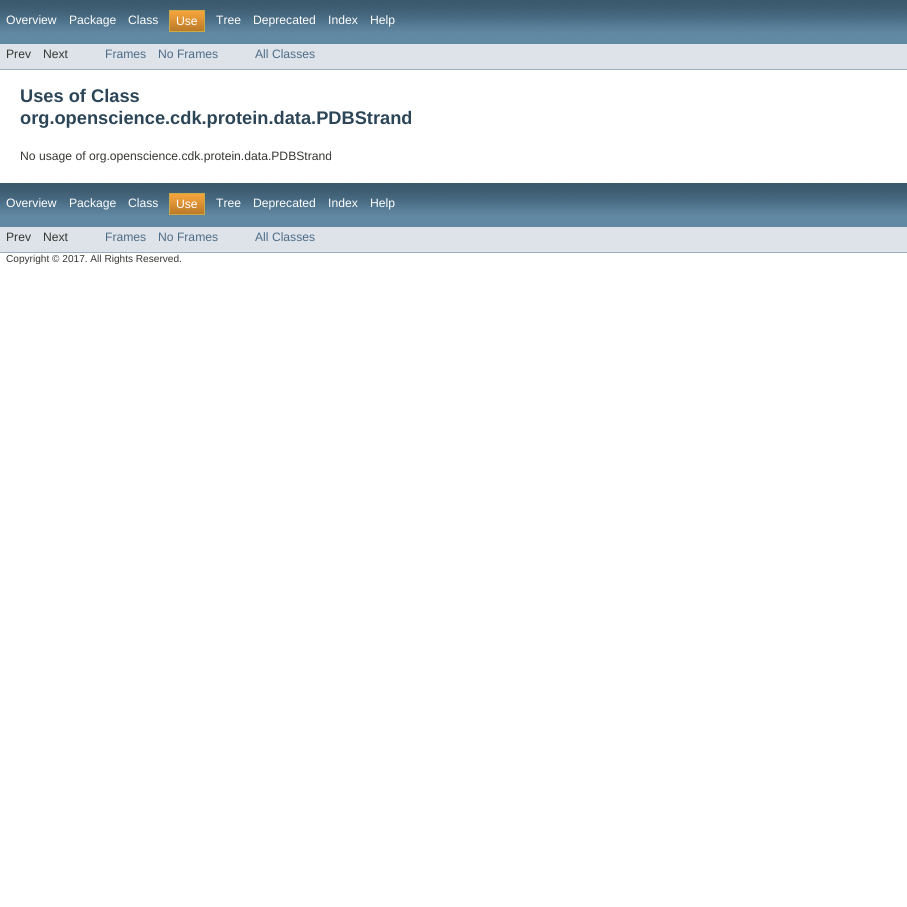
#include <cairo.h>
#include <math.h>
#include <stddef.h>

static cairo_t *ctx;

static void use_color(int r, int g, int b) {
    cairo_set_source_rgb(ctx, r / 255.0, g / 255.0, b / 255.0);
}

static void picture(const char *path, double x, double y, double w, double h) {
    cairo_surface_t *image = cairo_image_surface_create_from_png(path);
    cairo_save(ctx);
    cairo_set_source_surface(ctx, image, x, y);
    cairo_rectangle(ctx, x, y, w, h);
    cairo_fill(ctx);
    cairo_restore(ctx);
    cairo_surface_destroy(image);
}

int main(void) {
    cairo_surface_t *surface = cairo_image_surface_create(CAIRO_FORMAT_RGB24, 907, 907);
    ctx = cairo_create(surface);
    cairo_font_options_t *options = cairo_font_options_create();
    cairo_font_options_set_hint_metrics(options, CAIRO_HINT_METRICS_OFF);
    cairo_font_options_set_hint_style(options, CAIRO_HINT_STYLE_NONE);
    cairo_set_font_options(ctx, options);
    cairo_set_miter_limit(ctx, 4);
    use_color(255, 255, 255);
    cairo_paint(ctx);
    picture("img1.png", 0, 0, 907, 44);
    cairo_select_font_face(ctx, "Liberation Sans", CAIRO_FONT_SLANT_NORMAL, CAIRO_FONT_WEIGHT_NORMAL);
    cairo_set_font_size(ctx, 12.15);
    use_color(255, 255, 255);
    cairo_move_to(ctx, 6, 24);
    cairo_show_text(ctx, "Overview");
    cairo_move_to(ctx, 69, 24);
    cairo_show_text(ctx, "Package");
    cairo_move_to(ctx, 128, 24);
    cairo_show_text(ctx, "Class");
    picture("img2.png", 170, 11, 34, 20);
    cairo_rectangle(ctx, 169.5, 10.5, 35, 21);
    use_color(201, 170, 68);
    cairo_set_line_width(ctx, 1);
    cairo_stroke(ctx);
    use_color(255, 255, 255);
    cairo_move_to(ctx, 176, 25);
    cairo_show_text(ctx, "Use");
    cairo_move_to(ctx, 216, 24);
    cairo_show_text(ctx, "Tree");
    cairo_move_to(ctx, 253, 24);
    cairo_show_text(ctx, "Deprecated");
    cairo_move_to(ctx, 328, 24);
    cairo_show_text(ctx, "Index");
    cairo_move_to(ctx, 370, 24);
    cairo_show_text(ctx, "Help");
    use_color(222, 227, 233);
    cairo_rectangle(ctx, 0, 44, 907, 25);
    cairo_fill(ctx);
    use_color(158, 173, 192);
    cairo_rectangle(ctx, 0, 69, 907, 1);
    cairo_fill(ctx);
    use_color(53, 56, 51);
    cairo_move_to(ctx, 6, 58);
    cairo_show_text(ctx, "Prev");
    cairo_move_to(ctx, 43, 58);
    cairo_show_text(ctx, "Next");
    use_color(76, 107, 135);
    cairo_move_to(ctx, 105, 58);
    cairo_show_text(ctx, "Frames");
    cairo_move_to(ctx, 158, 58);
    cairo_show_text(ctx, "No Frames");
    cairo_move_to(ctx, 255, 58);
    cairo_show_text(ctx, "All Classes");
    cairo_select_font_face(ctx, "Liberation Sans", CAIRO_FONT_SLANT_NORMAL, CAIRO_FONT_WEIGHT_BOLD);
    cairo_set_font_size(ctx, 18.25);
    use_color(44, 69, 87);
    cairo_move_to(ctx, 20, 102);
    cairo_show_text(ctx, "Uses of Class");
    cairo_move_to(ctx, 20, 124);
    cairo_show_text(ctx, "org.openscience.cdk.protein.data.PDBStrand");
    cairo_select_font_face(ctx, "Liberation Sans", CAIRO_FONT_SLANT_NORMAL, CAIRO_FONT_WEIGHT_NORMAL);
    cairo_set_font_size(ctx, 12.15);
    use_color(53, 56, 51);
    cairo_move_to(ctx, 20, 160);
    cairo_show_text(ctx, "No usage of org.openscience.cdk.protein.data.PDBStrand");
    picture("img1.png", 0, 183, 907, 44);
    use_color(255, 255, 255);
    cairo_move_to(ctx, 6, 207);
    cairo_show_text(ctx, "Overview");
    cairo_move_to(ctx, 69, 207);
    cairo_show_text(ctx, "Package");
    cairo_move_to(ctx, 128, 207);
    cairo_show_text(ctx, "Class");
    picture("img2.png", 170, 194, 34, 20);
    cairo_rectangle(ctx, 169.5, 193.5, 35, 21);
    use_color(201, 170, 68);
    cairo_stroke(ctx);
    use_color(255, 255, 255);
    cairo_move_to(ctx, 176, 208);
    cairo_show_text(ctx, "Use");
    cairo_move_to(ctx, 216, 207);
    cairo_show_text(ctx, "Tree");
    cairo_move_to(ctx, 253, 207);
    cairo_show_text(ctx, "Deprecated");
    cairo_move_to(ctx, 328, 207);
    cairo_show_text(ctx, "Index");
    cairo_move_to(ctx, 370, 207);
    cairo_show_text(ctx, "Help");
    use_color(222, 227, 233);
    cairo_rectangle(ctx, 0, 227, 907, 25);
    cairo_fill(ctx);
    use_color(158, 173, 192);
    cairo_rectangle(ctx, 0, 252, 907, 1);
    cairo_fill(ctx);
    use_color(53, 56, 51);
    cairo_move_to(ctx, 6, 241);
    cairo_show_text(ctx, "Prev");
    cairo_move_to(ctx, 43, 241);
    cairo_show_text(ctx, "Next");
    use_color(76, 107, 135);
    cairo_move_to(ctx, 105, 241);
    cairo_show_text(ctx, "Frames");
    cairo_move_to(ctx, 158, 241);
    cairo_show_text(ctx, "No Frames");
    cairo_move_to(ctx, 255, 241);
    cairo_show_text(ctx, "All Classes");
    cairo_set_font_size(ctx, 10.1);
    use_color(53, 56, 51);
    cairo_move_to(ctx, 6, 262);
    cairo_show_text(ctx, "Copyright © 2017. All Rights Reserved.");
    cairo_surface_write_to_png(surface, "result.png");
    cairo_font_options_destroy(options);
    cairo_destroy(ctx);
    cairo_surface_destroy(surface);
    return 0;
}
